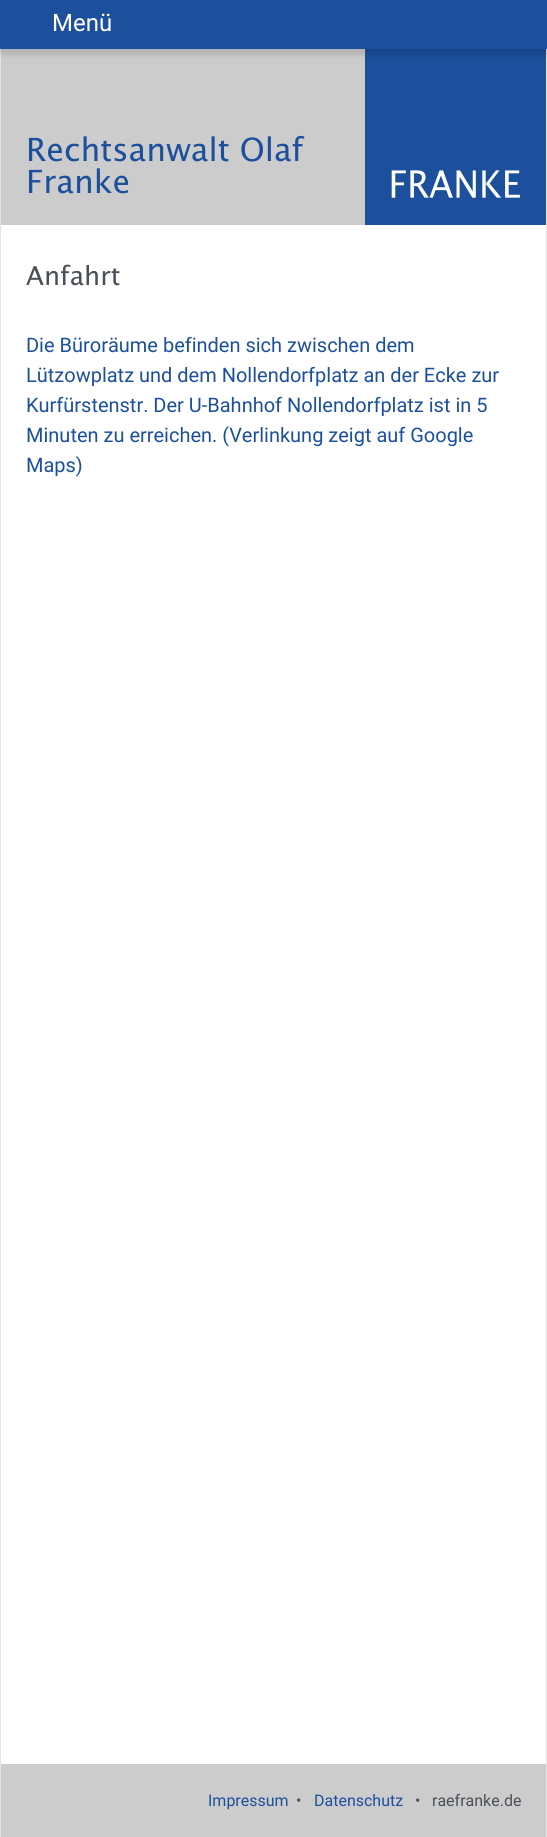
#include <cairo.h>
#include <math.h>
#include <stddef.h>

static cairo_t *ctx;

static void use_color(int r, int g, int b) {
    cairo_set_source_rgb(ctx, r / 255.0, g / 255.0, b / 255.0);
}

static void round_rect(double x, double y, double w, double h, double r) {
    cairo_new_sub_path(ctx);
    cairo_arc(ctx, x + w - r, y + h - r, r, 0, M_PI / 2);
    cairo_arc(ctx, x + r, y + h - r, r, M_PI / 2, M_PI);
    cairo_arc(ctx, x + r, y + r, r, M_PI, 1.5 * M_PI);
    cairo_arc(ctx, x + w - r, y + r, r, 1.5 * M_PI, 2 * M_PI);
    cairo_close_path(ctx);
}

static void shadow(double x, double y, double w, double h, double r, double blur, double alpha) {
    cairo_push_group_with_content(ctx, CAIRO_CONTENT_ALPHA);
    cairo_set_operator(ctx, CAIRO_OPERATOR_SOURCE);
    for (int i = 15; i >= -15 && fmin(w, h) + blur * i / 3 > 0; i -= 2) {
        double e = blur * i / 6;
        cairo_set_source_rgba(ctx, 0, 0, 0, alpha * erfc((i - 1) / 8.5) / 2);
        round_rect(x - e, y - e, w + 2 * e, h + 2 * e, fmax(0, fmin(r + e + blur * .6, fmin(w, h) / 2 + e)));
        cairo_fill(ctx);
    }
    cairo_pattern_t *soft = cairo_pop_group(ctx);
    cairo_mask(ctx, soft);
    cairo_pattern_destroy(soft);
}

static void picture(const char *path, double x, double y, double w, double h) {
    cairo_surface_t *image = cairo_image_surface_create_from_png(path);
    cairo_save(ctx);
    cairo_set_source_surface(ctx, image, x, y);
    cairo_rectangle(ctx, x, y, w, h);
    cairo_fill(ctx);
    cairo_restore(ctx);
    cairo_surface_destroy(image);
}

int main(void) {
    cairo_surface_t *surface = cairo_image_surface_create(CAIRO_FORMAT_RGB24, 547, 1837);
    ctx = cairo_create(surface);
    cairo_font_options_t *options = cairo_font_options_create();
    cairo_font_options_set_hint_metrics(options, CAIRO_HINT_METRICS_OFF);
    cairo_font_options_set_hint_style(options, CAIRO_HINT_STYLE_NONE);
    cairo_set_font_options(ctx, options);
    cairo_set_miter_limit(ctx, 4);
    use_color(229, 229, 229);
    cairo_paint(ctx);
    use_color(204, 204, 204);
    cairo_rectangle(ctx, 1, 49, 364, 176);
    cairo_fill(ctx);
    use_color(28, 79, 156);
    cairo_rectangle(ctx, 365, 49, 181, 176);
    cairo_fill(ctx);
    use_color(0, 0, 0);
    shadow(-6, -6, 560, 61, 0, 3, 0.12);
    use_color(28, 79, 156);
    cairo_rectangle(ctx, 0, 0, 547, 49);
    cairo_fill(ctx);
    cairo_select_font_face(ctx, "Roboto", CAIRO_FONT_SLANT_NORMAL, CAIRO_FONT_WEIGHT_NORMAL);
    cairo_set_font_size(ctx, 24);
    use_color(255, 255, 255);
    cairo_move_to(ctx, 52, 31);
    cairo_show_text(ctx, "Menü");
    cairo_select_font_face(ctx, "Lucida Grande", CAIRO_FONT_SLANT_NORMAL, CAIRO_FONT_WEIGHT_NORMAL);
    cairo_set_font_size(ctx, 32);
    use_color(28, 79, 156);
    cairo_move_to(ctx, 26, 161);
    cairo_show_text(ctx, "Rechtsanwalt Olaf");
    cairo_move_to(ctx, 26, 193);
    cairo_show_text(ctx, "Franke");
    picture("img1.png", 391, 170, 129, 28);
    use_color(255, 255, 255);
    cairo_rectangle(ctx, 1, 225, 545, 1539);
    cairo_fill(ctx);
    cairo_set_font_size(ctx, 26);
    use_color(73, 80, 87);
    cairo_move_to(ctx, 26, 285);
    cairo_show_text(ctx, "Anfahrt");
    cairo_select_font_face(ctx, "Roboto", CAIRO_FONT_SLANT_NORMAL, CAIRO_FONT_WEIGHT_NORMAL);
    cairo_set_font_size(ctx, 20);
    use_color(28, 79, 156);
    cairo_move_to(ctx, 26, 352);
    cairo_show_text(ctx, "Die Büroräume befinden sich zwischen dem");
    cairo_move_to(ctx, 26, 382);
    cairo_show_text(ctx, "Lützowplatz und dem Nollendorfplatz an der Ecke zur");
    cairo_move_to(ctx, 26, 412);
    cairo_show_text(ctx, "Kurfürstenstr. Der U-Bahnhof Nollendorfplatz ist in 5");
    cairo_move_to(ctx, 26, 442);
    cairo_show_text(ctx, "Minuten zu erreichen. (Verlinkung zeigt auf Google");
    cairo_move_to(ctx, 26, 472);
    cairo_show_text(ctx, "Maps)");
    use_color(204, 204, 204);
    cairo_rectangle(ctx, 1, 1764, 545, 73);
    cairo_fill(ctx);
    cairo_set_font_size(ctx, 16);
    use_color(28, 79, 156);
    cairo_move_to(ctx, 208, 1806);
    cairo_show_text(ctx, "Impressum");
    use_color(73, 80, 87);
    cairo_move_to(ctx, 296, 1806);
    cairo_show_text(ctx, "•");
    use_color(28, 79, 156);
    cairo_move_to(ctx, 314, 1806);
    cairo_show_text(ctx, "Datenschutz");
    use_color(73, 80, 87);
    cairo_move_to(ctx, 415, 1806);
    cairo_show_text(ctx, "•");
    cairo_move_to(ctx, 432, 1806);
    cairo_show_text(ctx, "raefranke.de");
    cairo_surface_write_to_png(surface, "result.png");
    cairo_font_options_destroy(options);
    cairo_destroy(ctx);
    cairo_surface_destroy(surface);
    return 0;
}
